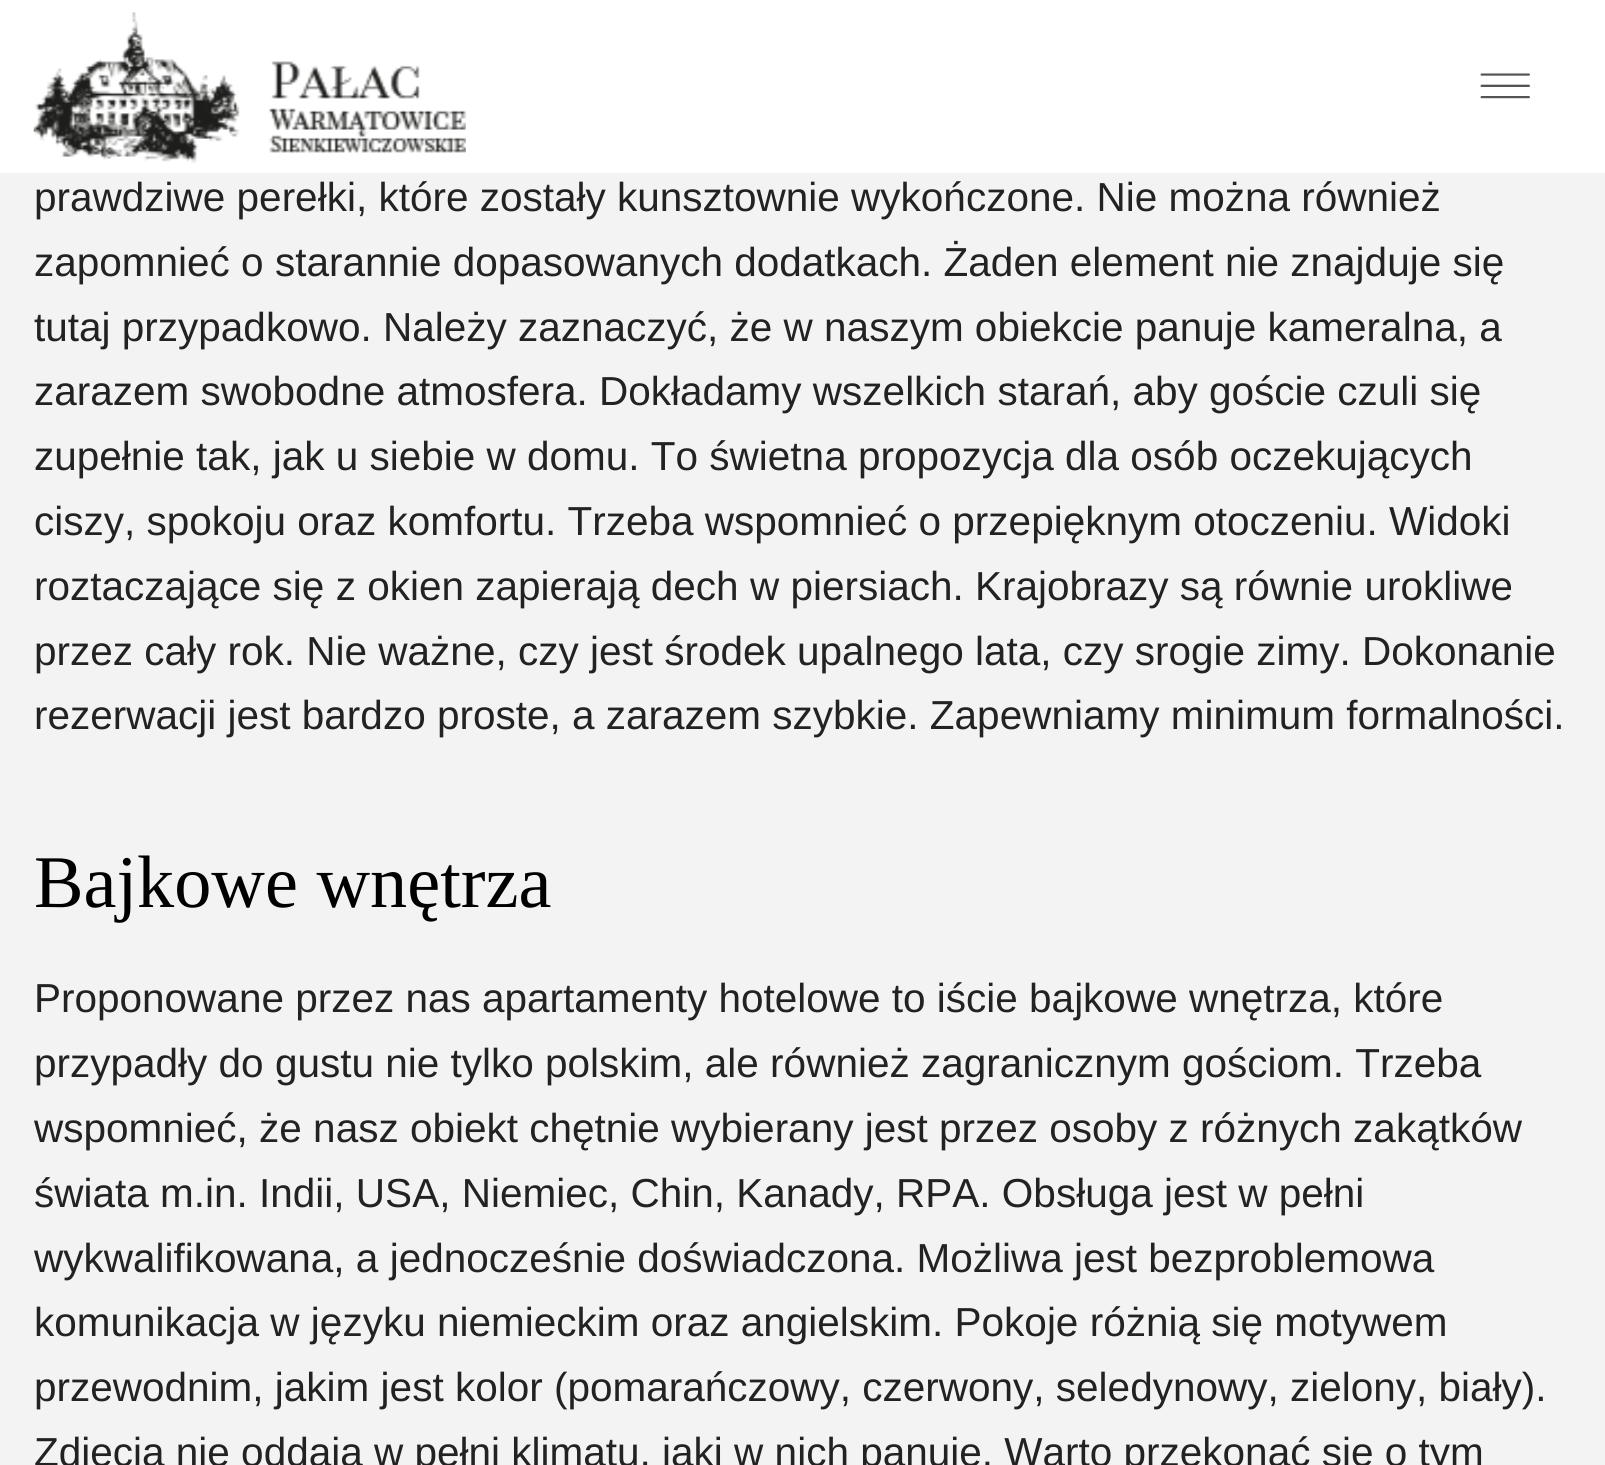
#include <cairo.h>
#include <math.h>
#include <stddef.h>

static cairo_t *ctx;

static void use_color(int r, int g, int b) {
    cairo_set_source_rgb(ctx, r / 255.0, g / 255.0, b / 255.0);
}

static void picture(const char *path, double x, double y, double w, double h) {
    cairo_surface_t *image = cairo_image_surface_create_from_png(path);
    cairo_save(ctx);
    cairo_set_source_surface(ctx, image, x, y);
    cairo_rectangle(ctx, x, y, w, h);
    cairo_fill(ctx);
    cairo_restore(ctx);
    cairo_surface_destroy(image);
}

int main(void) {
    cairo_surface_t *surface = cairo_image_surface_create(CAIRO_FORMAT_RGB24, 1605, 1465);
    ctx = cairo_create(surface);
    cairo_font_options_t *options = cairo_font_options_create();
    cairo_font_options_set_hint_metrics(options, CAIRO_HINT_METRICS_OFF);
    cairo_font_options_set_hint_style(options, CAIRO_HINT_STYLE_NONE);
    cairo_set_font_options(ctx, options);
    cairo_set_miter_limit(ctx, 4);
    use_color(243, 243, 243);
    cairo_paint(ctx);
    use_color(255, 255, 255);
    cairo_rectangle(ctx, 0, 0, 1605, 173);
    cairo_fill(ctx);
    picture("img1.png", 33, 12, 433, 151);
    picture("img2.png", 1480, 73, 50, 26);
    cairo_select_font_face(ctx, "Liberation Sans", CAIRO_FONT_SLANT_NORMAL, CAIRO_FONT_WEIGHT_NORMAL);
    cairo_set_font_size(ctx, 40.5);
    use_color(34, 34, 34);
    cairo_move_to(ctx, 34, 211);
    cairo_show_text(ctx, "prawdziwe perełki, które zostały kunsztownie wykończone. Nie można również");
    cairo_move_to(ctx, 34, 276);
    cairo_show_text(ctx, "zapomnieć o starannie dopasowanych dodatkach. Żaden element nie znajduje się");
    cairo_move_to(ctx, 34, 341);
    cairo_show_text(ctx, "tutaj przypadkowo. Należy zaznaczyć, że w naszym obiekcie panuje kameralna, a");
    cairo_move_to(ctx, 34, 405);
    cairo_show_text(ctx, "zarazem swobodne atmosfera. Dokładamy wszelkich starań, aby goście czuli się");
    cairo_move_to(ctx, 34, 470);
    cairo_show_text(ctx, "zupełnie tak, jak u siebie w domu. To świetna propozycja dla osób oczekujących");
    cairo_move_to(ctx, 34, 535);
    cairo_show_text(ctx, "ciszy, spokoju oraz komfortu. Trzeba wspomnieć o przepięknym otoczeniu. Widoki");
    cairo_move_to(ctx, 34, 600);
    cairo_show_text(ctx, "roztaczające się z okien zapierają dech w piersiach. Krajobrazy są równie urokliwe");
    cairo_move_to(ctx, 34, 665);
    cairo_show_text(ctx, "przez cały rok. Nie ważne, czy jest środek upalnego lata, czy srogie zimy. Dokonanie");
    cairo_move_to(ctx, 34, 729);
    cairo_show_text(ctx, "rezerwacji jest bardzo proste, a zarazem szybkie. Zapewniamy minimum formalności.");
    cairo_select_font_face(ctx, "Liberation Serif", CAIRO_FONT_SLANT_NORMAL, CAIRO_FONT_WEIGHT_NORMAL);
    cairo_set_font_size(ctx, 74.25);
    use_color(0, 0, 0);
    cairo_move_to(ctx, 34, 907);
    cairo_show_text(ctx, "Bajkowe wnętrza");
    cairo_select_font_face(ctx, "Liberation Sans", CAIRO_FONT_SLANT_NORMAL, CAIRO_FONT_WEIGHT_NORMAL);
    cairo_set_font_size(ctx, 40.5);
    use_color(34, 34, 34);
    cairo_move_to(ctx, 34, 1012);
    cairo_show_text(ctx, "Proponowane przez nas apartamenty hotelowe to iście bajkowe wnętrza, które");
    cairo_move_to(ctx, 34, 1077);
    cairo_show_text(ctx, "przypadły do gustu nie tylko polskim, ale również zagranicznym gościom. Trzeba");
    cairo_move_to(ctx, 34, 1142);
    cairo_show_text(ctx, "wspomnieć, że nasz obiekt chętnie wybierany jest przez osoby z różnych zakątków");
    cairo_move_to(ctx, 34, 1207);
    cairo_show_text(ctx, "świata m.in. Indii, USA, Niemiec, Chin, Kanady, RPA. Obsługa jest w pełni");
    cairo_move_to(ctx, 34, 1272);
    cairo_show_text(ctx, "wykwalifikowana, a jednocześnie doświadczona. Możliwa jest bezproblemowa");
    cairo_move_to(ctx, 34, 1336);
    cairo_show_text(ctx, "komunikacja w języku niemieckim oraz angielskim. Pokoje różnią się motywem");
    cairo_move_to(ctx, 34, 1401);
    cairo_show_text(ctx, "przewodnim, jakim jest kolor (pomarańczowy, czerwony, seledynowy, zielony, biały).");
    cairo_move_to(ctx, 34, 1466);
    cairo_show_text(ctx, "Zdjęcia nie oddają w pełni klimatu, jaki w nich panuje. Warto przekonać się o tym");
    cairo_surface_write_to_png(surface, "result.png");
    cairo_font_options_destroy(options);
    cairo_destroy(ctx);
    cairo_surface_destroy(surface);
    return 0;
}
